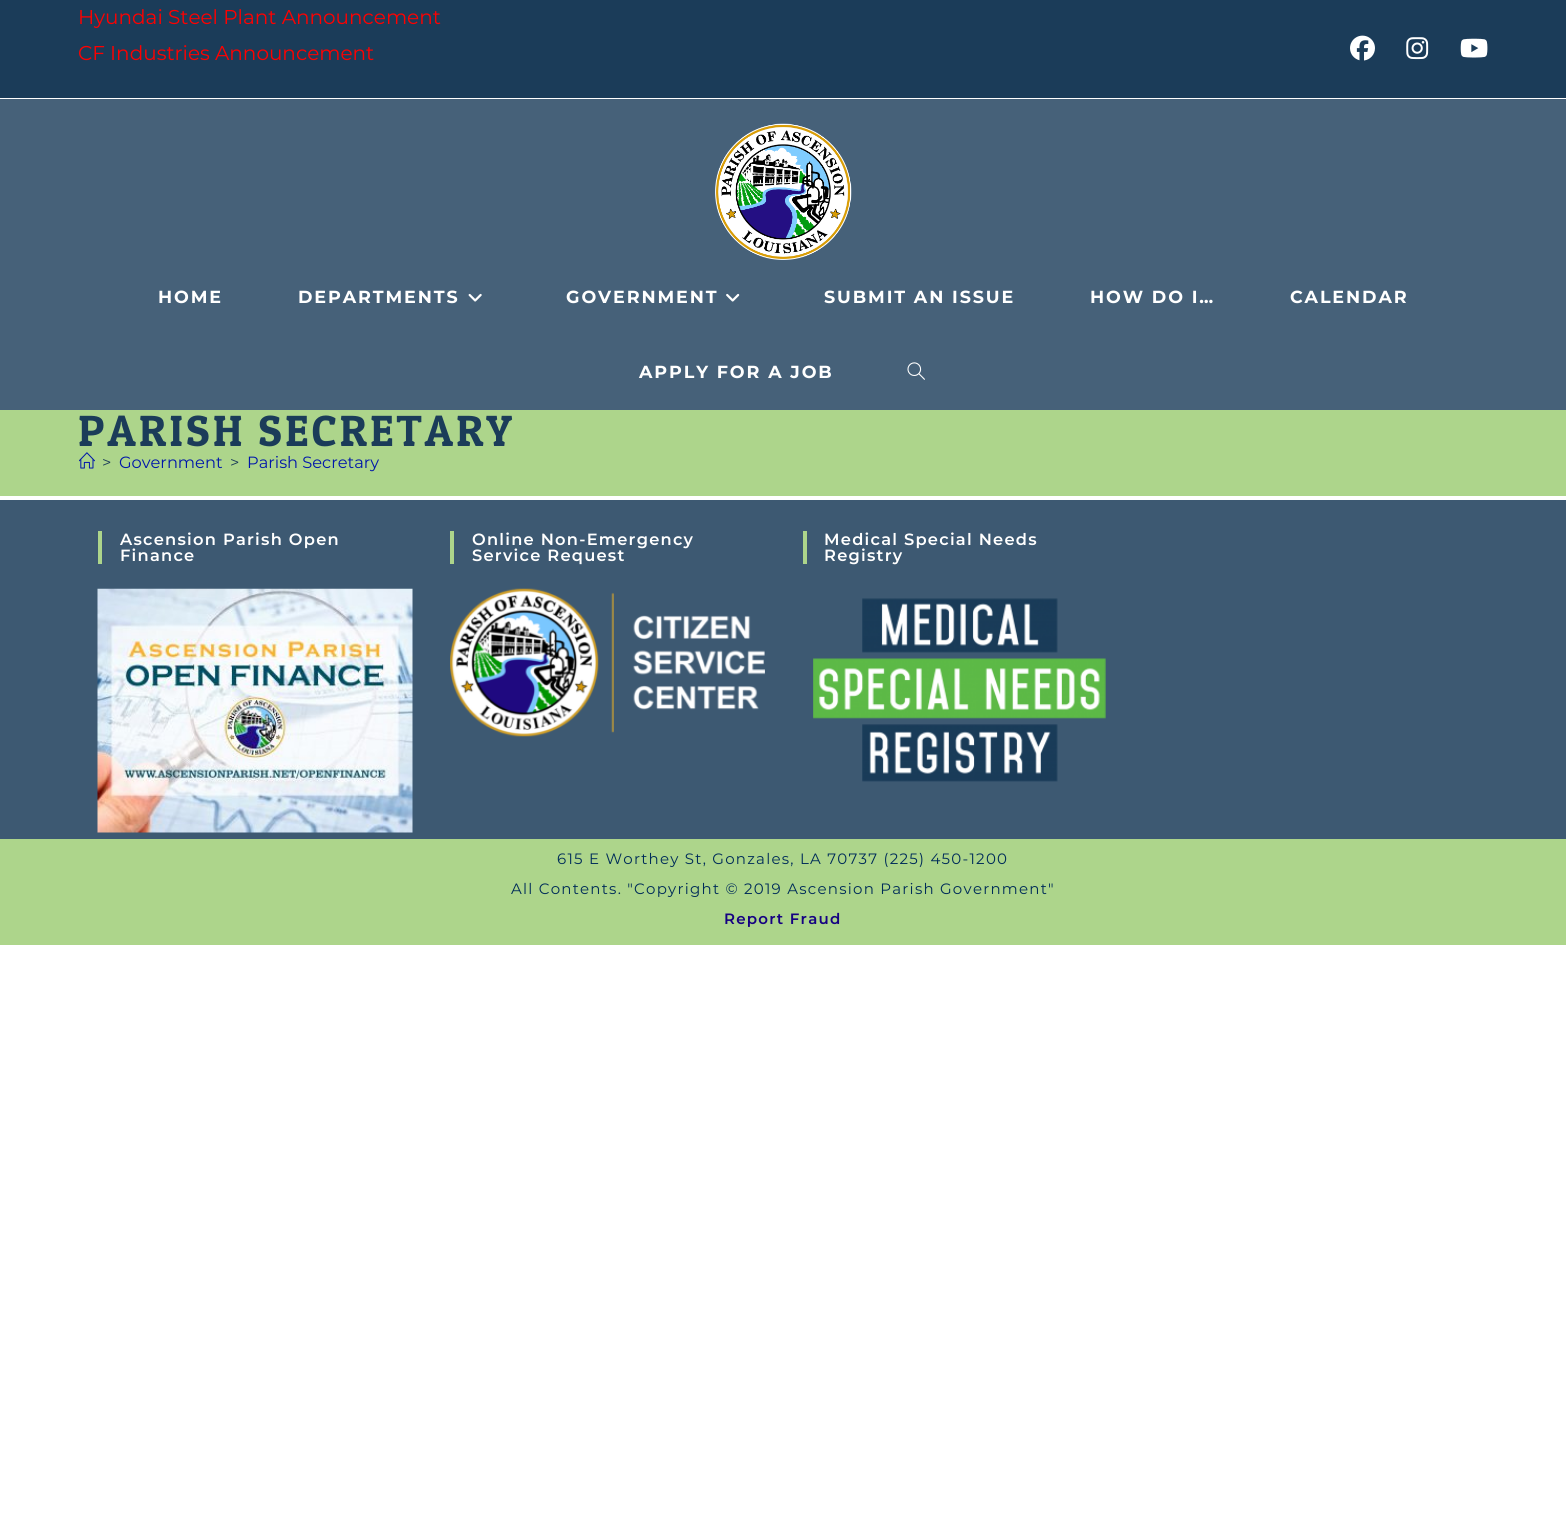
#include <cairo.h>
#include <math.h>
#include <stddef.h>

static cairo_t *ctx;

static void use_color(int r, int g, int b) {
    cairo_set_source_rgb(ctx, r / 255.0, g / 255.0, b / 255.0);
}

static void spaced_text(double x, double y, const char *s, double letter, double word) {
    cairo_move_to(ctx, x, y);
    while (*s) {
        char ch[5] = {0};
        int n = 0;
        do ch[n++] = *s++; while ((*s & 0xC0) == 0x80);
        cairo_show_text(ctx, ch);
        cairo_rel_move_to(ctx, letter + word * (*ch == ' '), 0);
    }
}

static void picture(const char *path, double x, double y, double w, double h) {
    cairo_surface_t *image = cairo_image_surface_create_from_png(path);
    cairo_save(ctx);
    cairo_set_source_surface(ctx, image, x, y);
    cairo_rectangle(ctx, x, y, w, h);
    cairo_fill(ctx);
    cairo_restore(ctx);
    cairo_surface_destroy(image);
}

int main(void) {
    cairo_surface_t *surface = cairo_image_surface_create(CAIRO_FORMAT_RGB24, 1566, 1522);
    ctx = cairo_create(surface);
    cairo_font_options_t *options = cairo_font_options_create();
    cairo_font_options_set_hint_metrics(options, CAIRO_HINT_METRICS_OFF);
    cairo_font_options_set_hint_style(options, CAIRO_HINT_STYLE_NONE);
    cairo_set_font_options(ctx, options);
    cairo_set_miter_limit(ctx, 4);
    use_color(255, 255, 255);
    cairo_paint(ctx);
    use_color(27, 60, 89);
    cairo_rectangle(ctx, 0, 0, 1566, 98);
    cairo_fill(ctx);
    cairo_select_font_face(ctx, "Montserrat", CAIRO_FONT_SLANT_NORMAL, CAIRO_FONT_WEIGHT_NORMAL);
    cairo_set_font_size(ctx, 20);
    use_color(255, 0, 0);
    cairo_move_to(ctx, 78, 24);
    cairo_show_text(ctx, "Hyundai Steel Plant Announcement");
    cairo_move_to(ctx, 78, 60);
    cairo_show_text(ctx, "CF Industries Announcement");
    picture("img1.png", 1350, 35, 25, 26);
    picture("img2.png", 1406, 37, 23, 23);
    picture("img3.png", 1460, 38, 28, 20);
    use_color(70, 97, 121);
    cairo_rectangle(ctx, 0, 99, 1566, 311);
    cairo_fill(ctx);
    picture("img4.png", 715, 123, 137, 137);
    cairo_select_font_face(ctx, "Montserrat", CAIRO_FONT_SLANT_NORMAL, CAIRO_FONT_WEIGHT_BOLD);
    cairo_set_font_size(ctx, 17.5);
    use_color(255, 255, 255);
    spaced_text(158, 303, "HOME", 1.9, 0);
    spaced_text(298, 303, "DEPARTMENTS", 1.9, 0);
    picture("img5.png", 468, 293, 14, 9);
    spaced_text(566, 303, "GOVERNMENT", 1.9, 0);
    picture("img6.png", 726, 293, 14, 9);
    spaced_text(824, 303, "SUBMIT AN ISSUE", 1.9, 0);
    spaced_text(1090, 303, "HOW DO I…", 1.9, 0);
    spaced_text(1290, 303, "CALENDAR", 1.9, 0);
    spaced_text(639, 378, "APPLY FOR A JOB", 1.9, 0);
    picture("img7.png", 907, 362, 18, 18);
    use_color(173, 213, 139);
    cairo_rectangle(ctx, 0, 410, 1566, 86);
    cairo_fill(ctx);
    cairo_select_font_face(ctx, "Patua One", CAIRO_FONT_SLANT_NORMAL, CAIRO_FONT_WEIGHT_NORMAL);
    cairo_set_font_size(ctx, 43.75);
    use_color(27, 60, 89);
    spaced_text(78, 446, "PARISH SECRETARY", 3, 0);
    picture("img8.png", 79, 452, 16, 17);
    cairo_select_font_face(ctx, "Montserrat", CAIRO_FONT_SLANT_NORMAL, CAIRO_FONT_WEIGHT_NORMAL);
    cairo_set_font_size(ctx, 16.25);
    cairo_move_to(ctx, 102, 468);
    cairo_show_text(ctx, ">");
    use_color(0, 22, 170);
    cairo_move_to(ctx, 119, 468);
    cairo_show_text(ctx, "Government");
    use_color(27, 60, 89);
    cairo_move_to(ctx, 230, 468);
    cairo_show_text(ctx, ">");
    use_color(0, 22, 170);
    cairo_move_to(ctx, 247, 468);
    cairo_show_text(ctx, "Parish Secretary");
    use_color(61, 89, 114);
    cairo_rectangle(ctx, 0, 500, 1566, 339);
    cairo_fill(ctx);
    use_color(173, 213, 139);
    cairo_rectangle(ctx, 98, 531, 4, 33);
    cairo_fill(ctx);
    cairo_select_font_face(ctx, "Montserrat SemiBold", CAIRO_FONT_SLANT_NORMAL, CAIRO_FONT_WEIGHT_NORMAL);
    use_color(255, 255, 255);
    spaced_text(120, 545, "Ascension Parish Open", 1.25, 0);
    spaced_text(120, 561, "Finance", 1.25, 0);
    picture("img9.png", 97, 588, 316, 245);
    use_color(173, 213, 139);
    cairo_rectangle(ctx, 450, 531, 4, 33);
    cairo_fill(ctx);
    use_color(255, 255, 255);
    spaced_text(472, 545, "Online Non-Emergency", 1.25, 0);
    spaced_text(472, 561, "Service Request", 1.25, 0);
    picture("img10.png", 450, 588, 315, 149);
    use_color(173, 213, 139);
    cairo_rectangle(ctx, 803, 531, 4, 33);
    cairo_fill(ctx);
    use_color(255, 255, 255);
    spaced_text(824, 545, "Medical Special Needs", 1.25, 0);
    spaced_text(824, 561, "Registry", 1.25, 0);
    picture("img11.png", 813, 598, 293, 184);
    use_color(173, 213, 139);
    cairo_rectangle(ctx, 0, 839, 1566, 106);
    cairo_fill(ctx);
    cairo_select_font_face(ctx, "Montserrat", CAIRO_FONT_SLANT_NORMAL, CAIRO_FONT_WEIGHT_NORMAL);
    cairo_set_font_size(ctx, 15);
    use_color(0, 44, 89);
    spaced_text(557, 864, "615 E Worthey St, Gonzales, LA 70737 (225) 450-1200", 1.25, 0);
    spaced_text(511, 894, "All Contents. \"Copyright © 2019 Ascension Parish Government\"", 1.25, 0);
    cairo_select_font_face(ctx, "Montserrat SemiBold", CAIRO_FONT_SLANT_NORMAL, CAIRO_FONT_WEIGHT_NORMAL);
    use_color(22, 1, 130);
    spaced_text(724, 924, "Report Fraud", 1.25, 0);
    cairo_surface_write_to_png(surface, "result.png");
    cairo_font_options_destroy(options);
    cairo_destroy(ctx);
    cairo_surface_destroy(surface);
    return 0;
}
